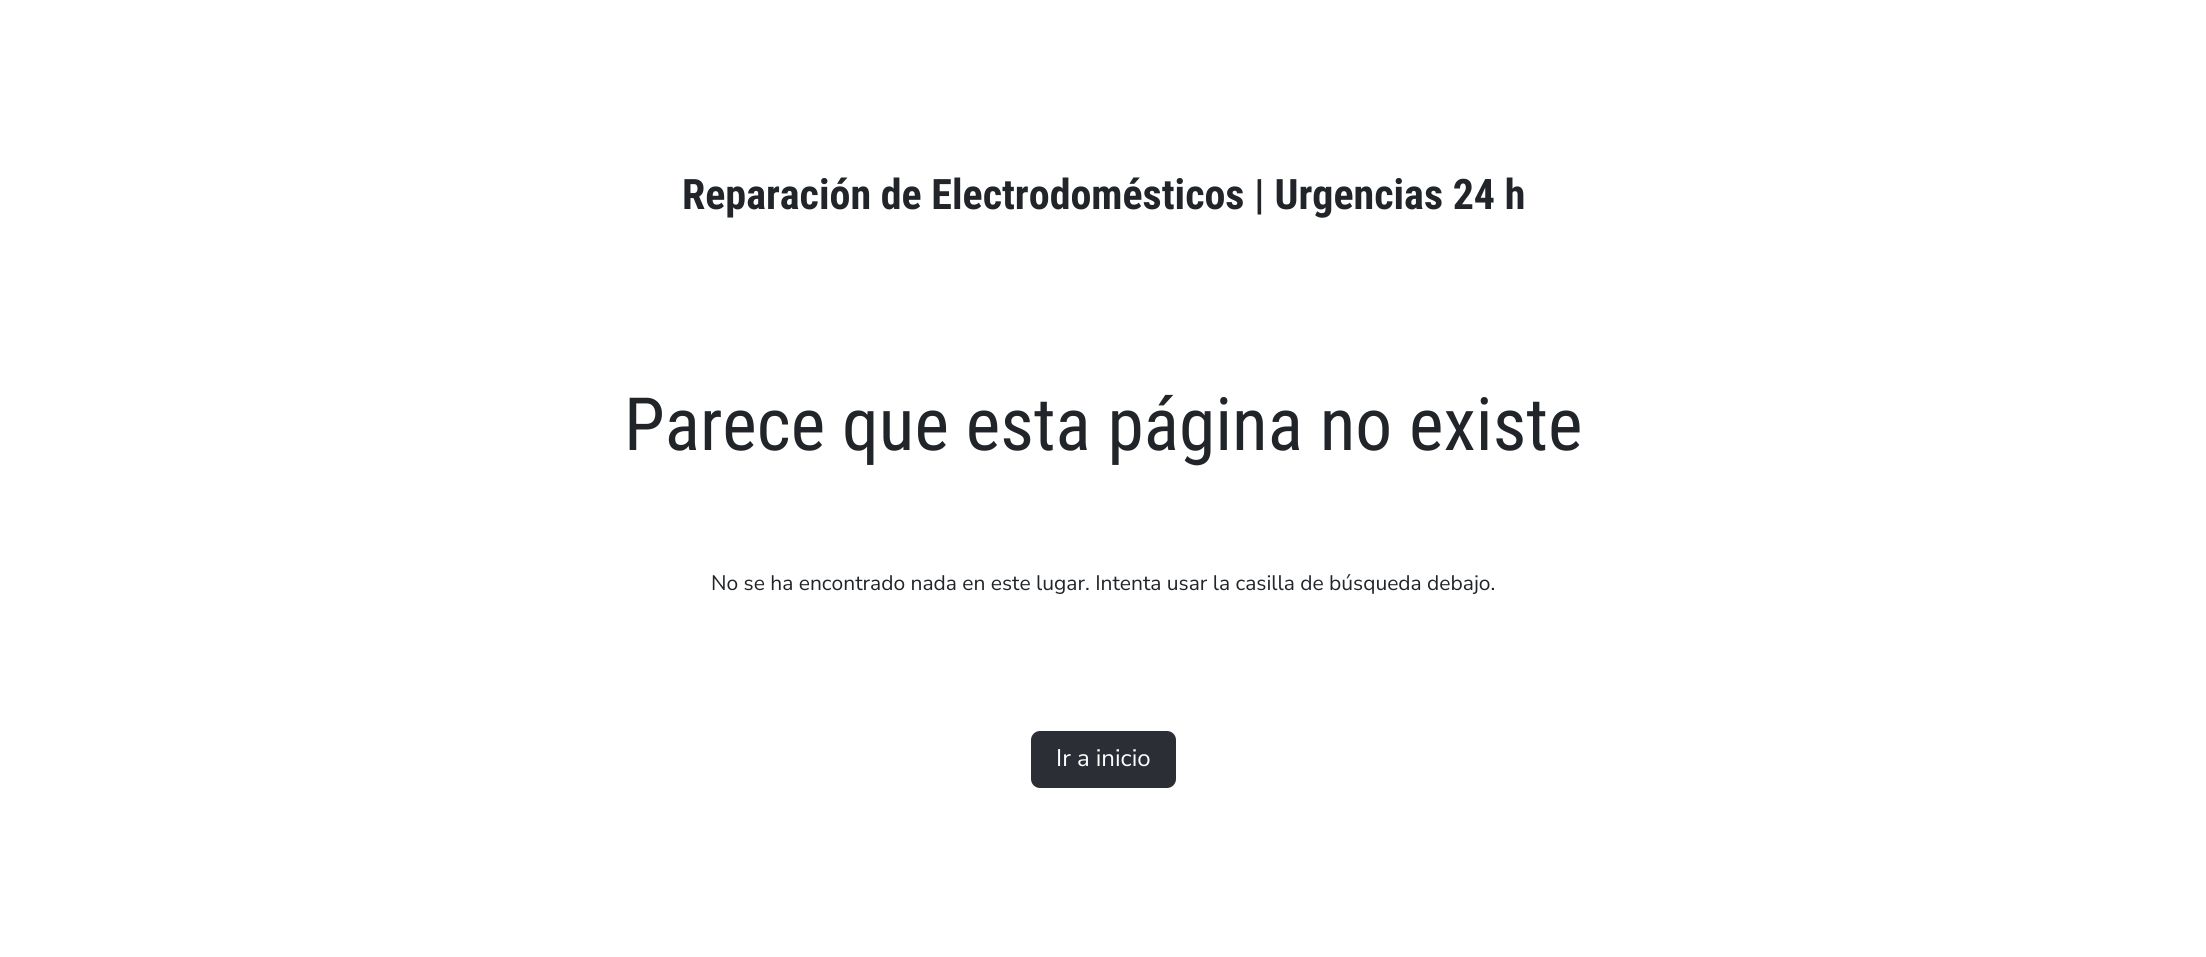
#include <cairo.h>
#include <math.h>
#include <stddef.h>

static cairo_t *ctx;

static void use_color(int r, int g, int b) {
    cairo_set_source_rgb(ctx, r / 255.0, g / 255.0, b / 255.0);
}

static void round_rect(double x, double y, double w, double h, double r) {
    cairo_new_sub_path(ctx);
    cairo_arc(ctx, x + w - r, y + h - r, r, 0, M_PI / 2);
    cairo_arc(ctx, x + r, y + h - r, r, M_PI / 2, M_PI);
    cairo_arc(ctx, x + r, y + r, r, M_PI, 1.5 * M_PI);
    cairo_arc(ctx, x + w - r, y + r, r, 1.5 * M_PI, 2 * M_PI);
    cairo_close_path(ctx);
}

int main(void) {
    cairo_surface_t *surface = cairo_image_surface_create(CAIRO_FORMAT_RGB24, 2206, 957);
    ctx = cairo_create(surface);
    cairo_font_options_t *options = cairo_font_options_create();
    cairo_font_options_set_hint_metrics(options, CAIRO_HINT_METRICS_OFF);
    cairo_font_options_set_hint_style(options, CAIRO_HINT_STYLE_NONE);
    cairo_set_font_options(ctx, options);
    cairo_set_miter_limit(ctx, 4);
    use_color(255, 255, 255);
    cairo_paint(ctx);
    cairo_select_font_face(ctx, "Roboto Condensed", CAIRO_FONT_SLANT_NORMAL, CAIRO_FONT_WEIGHT_BOLD);
    cairo_set_font_size(ctx, 42);
    use_color(33, 37, 41);
    cairo_move_to(ctx, 682, 209);
    cairo_show_text(ctx, "Reparación de Electrodomésticos | Urgencias 24 h");
    cairo_select_font_face(ctx, "Roboto Condensed", CAIRO_FONT_SLANT_NORMAL, CAIRO_FONT_WEIGHT_NORMAL);
    cairo_set_font_size(ctx, 73.5);
    cairo_move_to(ctx, 624, 450);
    cairo_show_text(ctx, "Parece que esta página no existe");
    cairo_select_font_face(ctx, "Nunito Sans", CAIRO_FONT_SLANT_NORMAL, CAIRO_FONT_WEIGHT_NORMAL);
    cairo_set_font_size(ctx, 21);
    cairo_move_to(ctx, 711, 590);
    cairo_show_text(ctx, "No se ha encontrado nada en este lugar. Intenta usar la casilla de búsqueda debajo.");
    use_color(44, 46, 54);
    round_rect(1032, 732, 143, 55, 8);
    cairo_fill_preserve(ctx);
    cairo_stroke(ctx);
    cairo_set_font_size(ctx, 24);
    use_color(255, 255, 255);
    cairo_move_to(ctx, 1056, 766);
    cairo_show_text(ctx, "Ir a inicio");
    cairo_surface_write_to_png(surface, "result.png");
    cairo_font_options_destroy(options);
    cairo_destroy(ctx);
    cairo_surface_destroy(surface);
    return 0;
}
